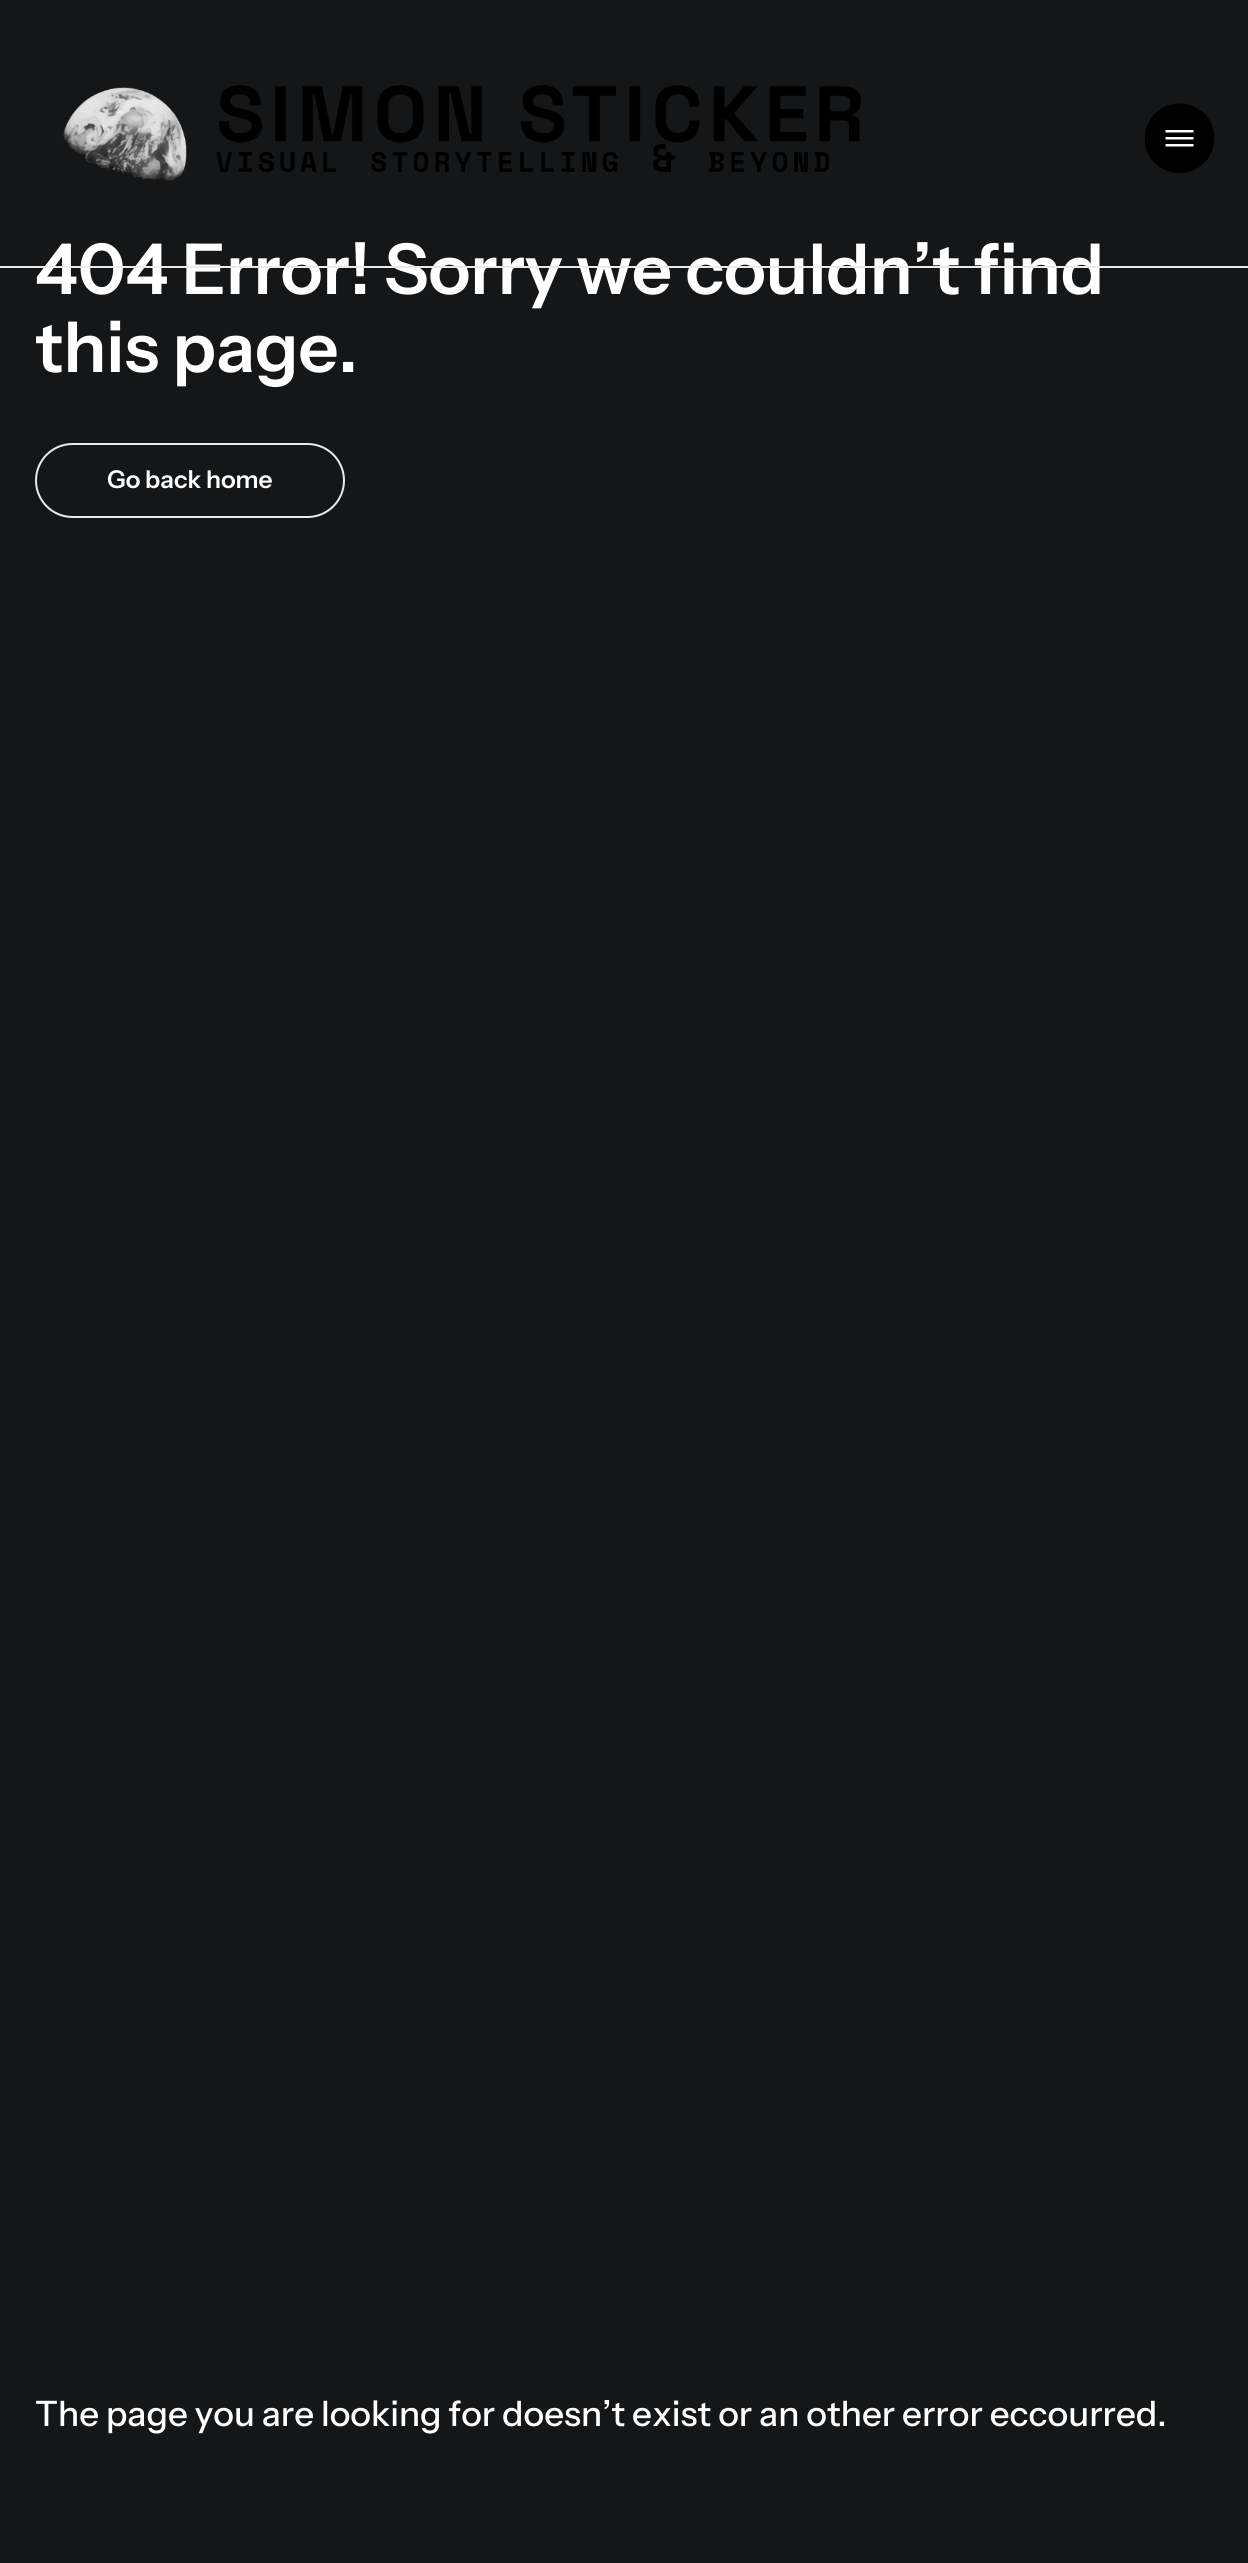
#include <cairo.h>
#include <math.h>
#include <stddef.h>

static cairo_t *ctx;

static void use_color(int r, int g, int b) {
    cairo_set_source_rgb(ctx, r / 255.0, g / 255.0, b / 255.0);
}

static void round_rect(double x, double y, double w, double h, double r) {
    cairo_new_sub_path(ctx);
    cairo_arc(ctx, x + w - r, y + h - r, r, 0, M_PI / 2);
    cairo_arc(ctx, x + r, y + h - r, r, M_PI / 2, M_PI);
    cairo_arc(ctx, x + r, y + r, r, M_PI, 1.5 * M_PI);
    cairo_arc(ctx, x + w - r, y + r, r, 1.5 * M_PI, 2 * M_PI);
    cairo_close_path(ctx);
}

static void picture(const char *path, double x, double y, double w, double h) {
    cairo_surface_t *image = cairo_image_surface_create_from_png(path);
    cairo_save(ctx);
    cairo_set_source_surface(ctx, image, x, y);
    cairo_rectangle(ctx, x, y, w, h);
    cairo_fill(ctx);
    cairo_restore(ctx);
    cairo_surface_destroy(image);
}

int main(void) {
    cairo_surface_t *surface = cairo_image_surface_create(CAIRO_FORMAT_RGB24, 1248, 2563);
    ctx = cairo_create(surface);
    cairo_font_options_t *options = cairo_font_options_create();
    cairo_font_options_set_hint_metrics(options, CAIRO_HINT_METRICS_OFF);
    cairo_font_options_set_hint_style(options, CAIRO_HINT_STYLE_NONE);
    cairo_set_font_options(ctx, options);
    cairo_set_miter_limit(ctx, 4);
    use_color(20, 22, 24);
    cairo_paint(ctx);
    cairo_select_font_face(ctx, "Instrument Sans SemiBold", CAIRO_FONT_SLANT_NORMAL, CAIRO_FONT_WEIGHT_NORMAL);
    cairo_set_font_size(ctx, 70);
    use_color(255, 255, 255);
    cairo_move_to(ctx, 35, 294);
    cairo_show_text(ctx, "404 Error! Sorry we couldn’t find");
    use_color(234, 234, 234);
    cairo_rectangle(ctx, 0, 266, 1248, 2);
    cairo_fill(ctx);
    picture("img1.png", 63, 85, 798, 96);
    picture("img2.png", 1145, 103, 70, 70);
    use_color(255, 255, 255);
    cairo_move_to(ctx, 35, 372);
    cairo_show_text(ctx, "this page.");
    round_rect(36, 444, 308, 73, 36.5);
    use_color(234, 234, 234);
    cairo_stroke(ctx);
    cairo_set_font_size(ctx, 24.5);
    use_color(255, 255, 255);
    cairo_move_to(ctx, 107, 488);
    cairo_show_text(ctx, "Go back home");
    cairo_select_font_face(ctx, "Instrument Sans Medium", CAIRO_FONT_SLANT_NORMAL, CAIRO_FONT_WEIGHT_NORMAL);
    cairo_set_font_size(ctx, 35);
    cairo_move_to(ctx, 35, 2426);
    cairo_show_text(ctx, "The page you are looking for doesn’t exist or an other error eccourred.");
    cairo_surface_write_to_png(surface, "result.png");
    cairo_font_options_destroy(options);
    cairo_destroy(ctx);
    cairo_surface_destroy(surface);
    return 0;
}
